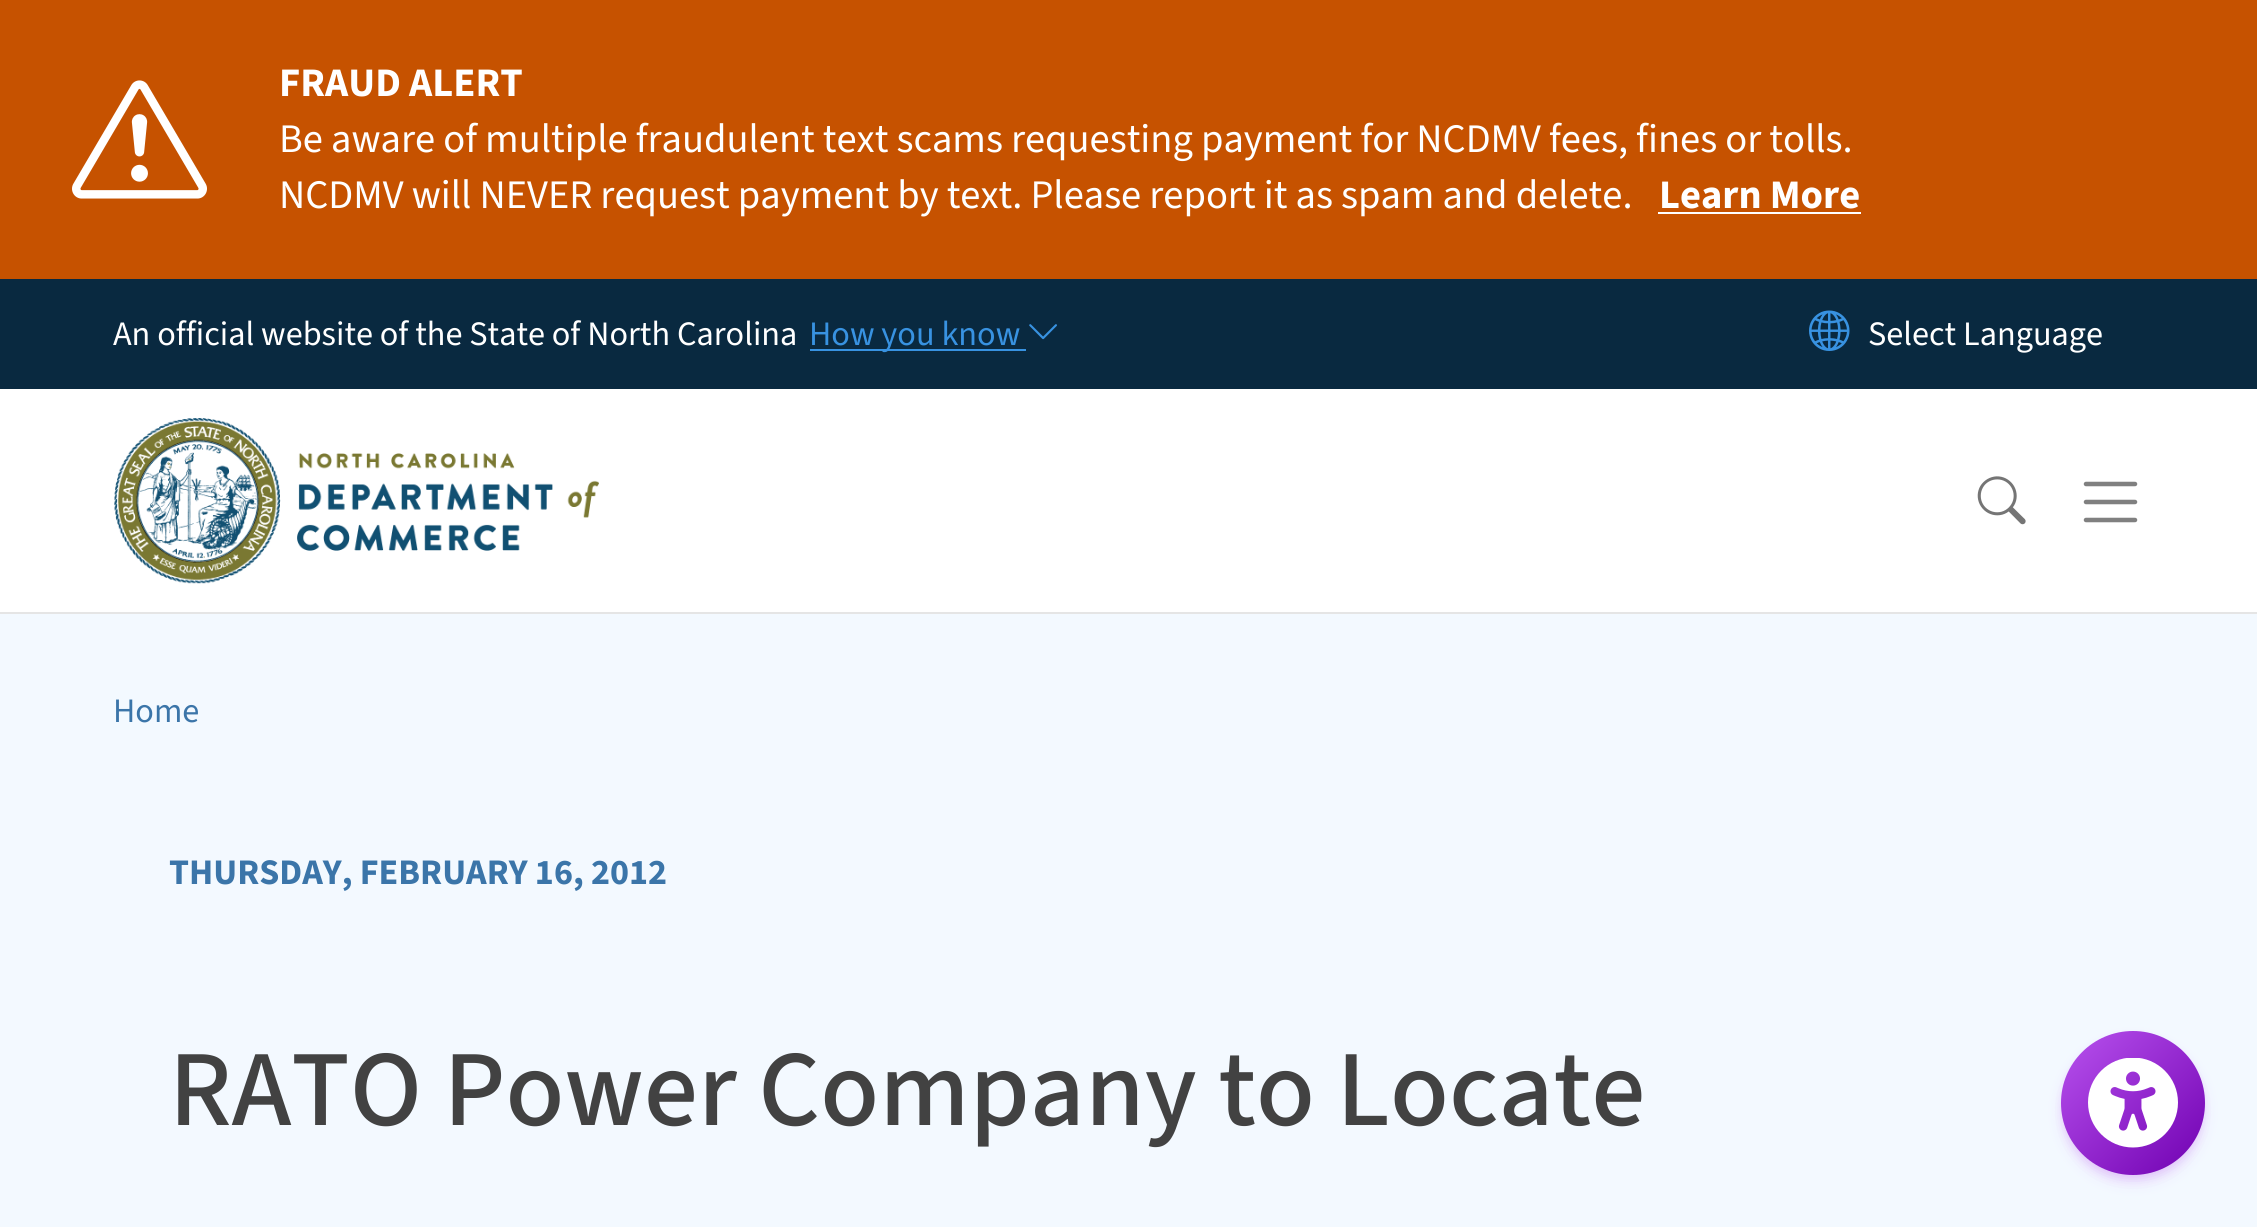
#include <cairo.h>
#include <math.h>
#include <stddef.h>

static cairo_t *ctx;

static void use_color(int r, int g, int b) {
    cairo_set_source_rgb(ctx, r / 255.0, g / 255.0, b / 255.0);
}

static void round_rect(double x, double y, double w, double h, double r) {
    cairo_new_sub_path(ctx);
    cairo_arc(ctx, x + w - r, y + h - r, r, 0, M_PI / 2);
    cairo_arc(ctx, x + r, y + h - r, r, M_PI / 2, M_PI);
    cairo_arc(ctx, x + r, y + r, r, M_PI, 1.5 * M_PI);
    cairo_arc(ctx, x + w - r, y + r, r, 1.5 * M_PI, 2 * M_PI);
    cairo_close_path(ctx);
}

static void shadow(double x, double y, double w, double h, double r, double blur, double alpha) {
    cairo_push_group_with_content(ctx, CAIRO_CONTENT_ALPHA);
    cairo_set_operator(ctx, CAIRO_OPERATOR_SOURCE);
    for (int i = 15; i >= -15 && fmin(w, h) + blur * i / 3 > 0; i -= 2) {
        double e = blur * i / 6;
        cairo_set_source_rgba(ctx, 0, 0, 0, alpha * erfc((i - 1) / 8.5) / 2);
        round_rect(x - e, y - e, w + 2 * e, h + 2 * e, fmax(0, fmin(r + e + blur * .6, fmin(w, h) / 2 + e)));
        cairo_fill(ctx);
    }
    cairo_pattern_t *soft = cairo_pop_group(ctx);
    cairo_mask(ctx, soft);
    cairo_pattern_destroy(soft);
}

static void picture(const char *path, double x, double y, double w, double h) {
    cairo_surface_t *image = cairo_image_surface_create_from_png(path);
    cairo_save(ctx);
    cairo_set_source_surface(ctx, image, x, y);
    cairo_rectangle(ctx, x, y, w, h);
    cairo_fill(ctx);
    cairo_restore(ctx);
    cairo_surface_destroy(image);
}

int main(void) {
    cairo_surface_t *surface = cairo_image_surface_create(CAIRO_FORMAT_RGB24, 2257, 1227);
    ctx = cairo_create(surface);
    cairo_font_options_t *options = cairo_font_options_create();
    cairo_font_options_set_hint_metrics(options, CAIRO_HINT_METRICS_OFF);
    cairo_font_options_set_hint_style(options, CAIRO_HINT_STYLE_NONE);
    cairo_set_font_options(ctx, options);
    cairo_set_miter_limit(ctx, 4);
    cairo_pattern_t *gradient;
    use_color(255, 255, 255);
    cairo_paint(ctx);
    use_color(229, 229, 229);
    cairo_rectangle(ctx, 0, 612, 2257, 2);
    cairo_fill(ctx);
    use_color(198, 82, 0);
    cairo_rectangle(ctx, 0, 0, 2257, 279);
    cairo_fill(ctx);
    picture("img1.png", 72, 80, 135, 119);
    cairo_select_font_face(ctx, "Source Sans 3", CAIRO_FONT_SLANT_NORMAL, CAIRO_FONT_WEIGHT_BOLD);
    cairo_set_font_size(ctx, 40.5);
    use_color(255, 255, 255);
    cairo_move_to(ctx, 279, 96);
    cairo_show_text(ctx, "FRAUD ALERT");
    cairo_select_font_face(ctx, "Source Sans 3", CAIRO_FONT_SLANT_NORMAL, CAIRO_FONT_WEIGHT_NORMAL);
    cairo_move_to(ctx, 279, 152);
    cairo_show_text(ctx, "Be aware of multiple fraudulent text scams requesting payment for NCDMV fees, fines or tolls.");
    cairo_move_to(ctx, 279, 208);
    cairo_show_text(ctx, "NCDMV will NEVER request payment by text. Please report it as spam and delete.");
    cairo_select_font_face(ctx, "Source Sans 3", CAIRO_FONT_SLANT_NORMAL, CAIRO_FONT_WEIGHT_BOLD);
    cairo_move_to(ctx, 1659, 208);
    cairo_show_text(ctx, "Learn More");
    cairo_rectangle(ctx, 1658, 212, 203, 2);
    cairo_fill(ctx);
    use_color(9, 41, 64);
    cairo_rectangle(ctx, 0, 279, 2257, 110);
    cairo_fill(ctx);
    cairo_select_font_face(ctx, "Source Sans 3", CAIRO_FONT_SLANT_NORMAL, CAIRO_FONT_WEIGHT_NORMAL);
    cairo_set_font_size(ctx, 34.25);
    use_color(255, 255, 255);
    cairo_move_to(ctx, 113, 345);
    cairo_show_text(ctx, "An official website of the State of North Carolina");
    use_color(56, 146, 225);
    cairo_rectangle(ctx, 810, 349, 216, 2);
    cairo_fill(ctx);
    cairo_move_to(ctx, 809, 345);
    cairo_show_text(ctx, "How you know");
    picture("img2.png", 1029, 324, 28, 16);
    picture("img3.png", 1809, 310, 41, 41);
    use_color(255, 255, 255);
    cairo_move_to(ctx, 1868, 345);
    cairo_show_text(ctx, "Select Language");
    picture("img4.png", 114, 418, 485, 166);
    picture("img5.png", 1977, 476, 49, 49);
    cairo_new_path(ctx);
    cairo_move_to(ctx, 2086, 484);
    cairo_line_to(ctx, 2135, 484);
    cairo_move_to(ctx, 2086, 502);
    cairo_line_to(ctx, 2135, 502);
    cairo_move_to(ctx, 2086, 520);
    cairo_line_to(ctx, 2135, 520);
    use_color(128, 128, 128);
    cairo_set_line_width(ctx, 4.5);
    cairo_set_line_cap(ctx, CAIRO_LINE_CAP_ROUND);
    cairo_stroke(ctx);
    use_color(243, 249, 255);
    cairo_rectangle(ctx, 0, 614, 2257, 613);
    cairo_fill(ctx);
    use_color(59, 117, 169);
    cairo_move_to(ctx, 113, 722);
    cairo_show_text(ctx, "Home");
    cairo_select_font_face(ctx, "Source Sans 3", CAIRO_FONT_SLANT_NORMAL, CAIRO_FONT_WEIGHT_BOLD);
    cairo_set_font_size(ctx, 36);
    cairo_move_to(ctx, 169, 884);
    cairo_show_text(ctx, "THURSDAY, FEBRUARY 16, 2012");
    cairo_select_font_face(ctx, "Source Sans 3 Medium", CAIRO_FONT_SLANT_NORMAL, CAIRO_FONT_WEIGHT_NORMAL);
    cairo_set_font_size(ctx, 108);
    use_color(66, 66, 66);
    cairo_move_to(ctx, 169, 1125);
    cairo_show_text(ctx, "RATO Power Company to Locate");
    use_color(184, 82, 238);
    shadow(2063, 1037, 140, 140, 70, 4.5, 0.15);
    shadow(2063, 1042, 140, 139, 69.5, 7, 0.25);
    gradient = cairo_pattern_create_linear(2061, 1031, 2205, 1175);
    cairo_pattern_add_color_stop_rgba(gradient, 0, 0.722, 0.322, 0.933, 1);
    cairo_pattern_add_color_stop_rgba(gradient, 1, 0.439, 0, 0.694, 1);
    cairo_set_source(ctx, gradient);
    cairo_pattern_destroy(gradient);
    cairo_arc(ctx, 2133, 1103, 72, 0, 2 * M_PI);
    cairo_fill(ctx);
    picture("img6.png", 2088, 1058, 90, 90);
    cairo_surface_write_to_png(surface, "result.png");
    cairo_font_options_destroy(options);
    cairo_destroy(ctx);
    cairo_surface_destroy(surface);
    return 0;
}
